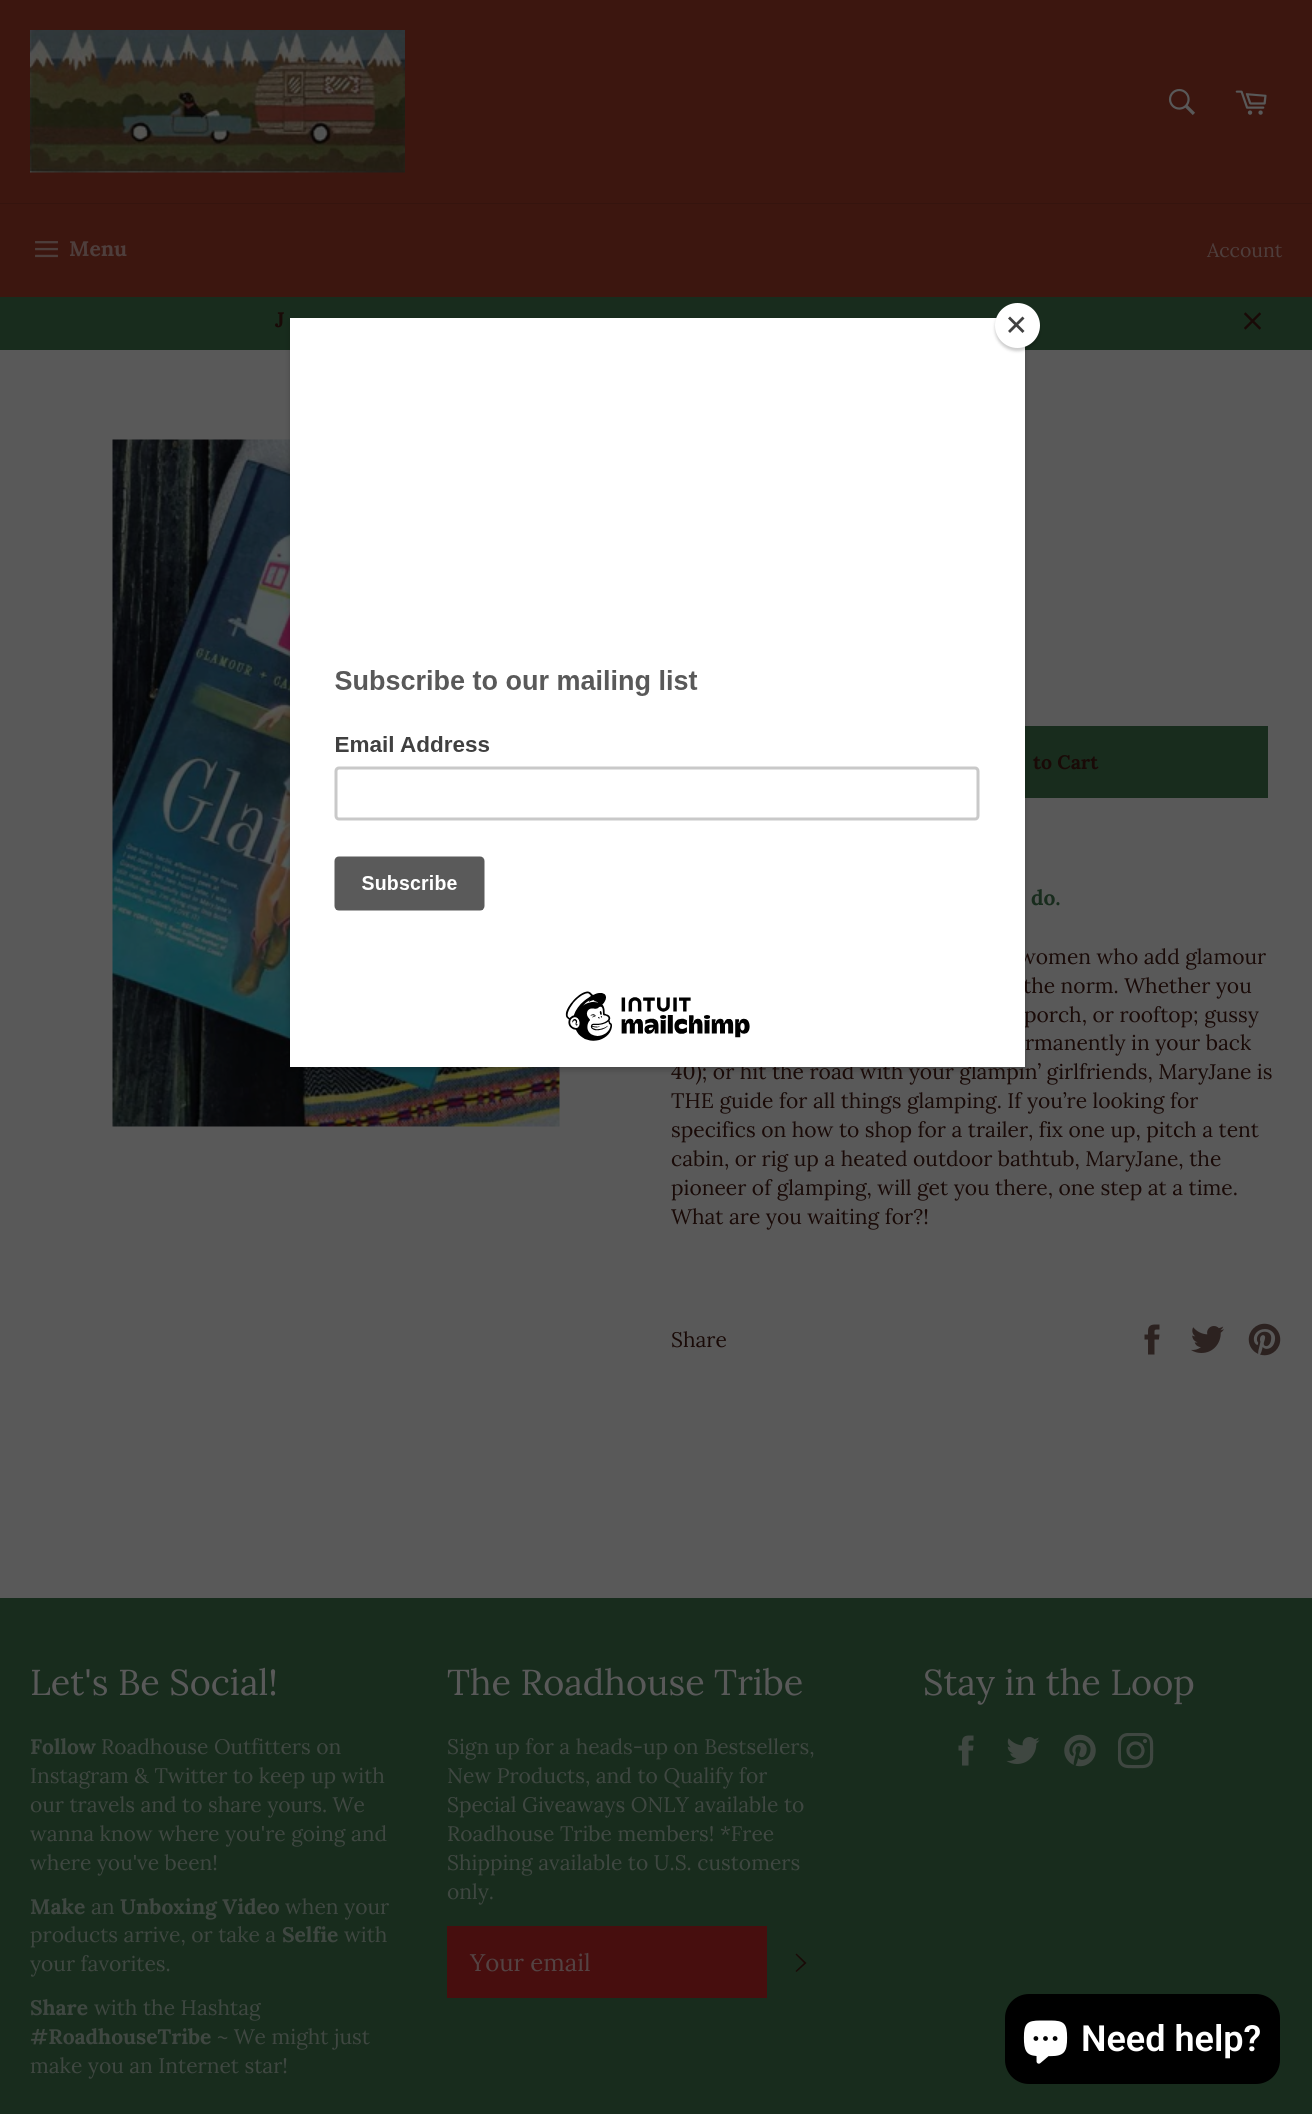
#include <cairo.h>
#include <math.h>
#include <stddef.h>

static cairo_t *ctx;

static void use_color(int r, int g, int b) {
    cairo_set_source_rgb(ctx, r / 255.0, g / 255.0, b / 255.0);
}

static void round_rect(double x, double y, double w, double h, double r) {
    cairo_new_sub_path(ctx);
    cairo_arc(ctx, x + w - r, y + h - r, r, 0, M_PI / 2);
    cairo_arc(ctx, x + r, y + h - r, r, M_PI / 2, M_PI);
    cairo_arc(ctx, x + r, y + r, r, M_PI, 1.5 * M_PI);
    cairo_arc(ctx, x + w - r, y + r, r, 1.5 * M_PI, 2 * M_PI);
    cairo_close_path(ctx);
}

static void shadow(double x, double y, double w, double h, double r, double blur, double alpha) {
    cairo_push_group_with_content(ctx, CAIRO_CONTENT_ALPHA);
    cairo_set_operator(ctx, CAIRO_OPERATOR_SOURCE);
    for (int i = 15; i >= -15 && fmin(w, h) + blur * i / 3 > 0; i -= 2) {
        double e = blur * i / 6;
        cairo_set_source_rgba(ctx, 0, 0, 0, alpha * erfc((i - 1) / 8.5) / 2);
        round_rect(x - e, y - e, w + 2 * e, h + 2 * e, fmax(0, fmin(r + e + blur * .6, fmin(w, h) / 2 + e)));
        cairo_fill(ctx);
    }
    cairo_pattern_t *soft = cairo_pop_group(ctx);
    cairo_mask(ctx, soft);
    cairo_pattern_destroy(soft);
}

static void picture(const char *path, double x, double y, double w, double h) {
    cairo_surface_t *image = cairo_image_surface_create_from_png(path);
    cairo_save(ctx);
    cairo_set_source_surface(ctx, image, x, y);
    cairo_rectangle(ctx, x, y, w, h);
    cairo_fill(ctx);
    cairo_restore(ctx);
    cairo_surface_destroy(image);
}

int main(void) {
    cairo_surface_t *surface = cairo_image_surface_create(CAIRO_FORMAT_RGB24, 1312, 2114);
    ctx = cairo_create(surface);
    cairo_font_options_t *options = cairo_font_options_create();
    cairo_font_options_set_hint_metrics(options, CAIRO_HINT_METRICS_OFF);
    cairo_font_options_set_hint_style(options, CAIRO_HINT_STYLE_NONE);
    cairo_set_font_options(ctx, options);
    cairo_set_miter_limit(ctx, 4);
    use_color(89, 89, 89);
    cairo_paint(ctx);
    use_color(60, 22, 15);
    cairo_rectangle(ctx, 0, 0, 1312, 203);
    cairo_fill(ctx);
    picture("img1.png", 30, 30, 375, 143);
    picture("img2.png", 1168, 88, 27, 27);
    picture("img3.png", 1235, 90, 32, 25);
    use_color(53, 20, 14);
    cairo_rectangle(ctx, 0, 203, 1312, 1);
    cairo_fill(ctx);
    use_color(60, 22, 15);
    cairo_rectangle(ctx, 0, 204, 1312, 93);
    cairo_fill(ctx);
    picture("img4.png", 35, 241, 23, 17);
    cairo_select_font_face(ctx, "Lora", CAIRO_FONT_SLANT_NORMAL, CAIRO_FONT_WEIGHT_BOLD);
    cairo_set_font_size(ctx, 21);
    use_color(78, 62, 60);
    cairo_move_to(ctx, 69, 256);
    cairo_show_text(ctx, "Menu");
    cairo_select_font_face(ctx, "Lora", CAIRO_FONT_SLANT_NORMAL, CAIRO_FONT_WEIGHT_NORMAL);
    cairo_set_font_size(ctx, 19.5);
    cairo_move_to(ctx, 1207, 257);
    cairo_show_text(ctx, "Account");
    use_color(24, 44, 29);
    cairo_rectangle(ctx, 0, 297, 1312, 53);
    cairo_fill(ctx);
    cairo_select_font_face(ctx, "Lora", CAIRO_FONT_SLANT_NORMAL, CAIRO_FONT_WEIGHT_BOLD);
    cairo_set_font_size(ctx, 21);
    use_color(25, 10, 7);
    cairo_move_to(ctx, 275, 327);
    cairo_show_text(ctx, "J");
    picture("img5.png", 1244, 312, 17, 18);
    picture("img7.png", 112, 439, 448, 688);
    use_color(24, 44, 29);
    cairo_rectangle(ctx, 1025, 726, 243, 72);
    cairo_fill(ctx);
    use_color(0, 0, 0);
    shadow(290, 321, 735, 749, 0, 3, 0.2);
    cairo_select_font_face(ctx, "Lora", CAIRO_FONT_SLANT_NORMAL, CAIRO_FONT_WEIGHT_NORMAL);
    use_color(25, 10, 7);
    cairo_move_to(ctx, 1019, 964);
    cairo_show_text(ctx, "women who add glamour");
    cairo_move_to(ctx, 1023, 993);
    cairo_show_text(ctx, "the norm. Whether you");
    cairo_move_to(ctx, 1024, 1022);
    cairo_show_text(ctx, "porch, or rooftop; gussy");
    cairo_move_to(ctx, 671, 1079);
    cairo_show_text(ctx, "40); or hit the road with your glampin’ girlfriends, MaryJane is");
    picture("img6.png", 290, 318, 735, 749);
    use_color(0, 0, 0);
    shadow(995, 306, 45, 45, 22.5, 1.5, 0.2);
    use_color(255, 255, 255);
    cairo_arc(ctx, 1017.5, 325.5, 22.5, 0, 2 * M_PI);
    cairo_fill(ctx);
    use_color(65, 65, 65);
    cairo_new_path(ctx);
    cairo_move_to(ctx, 1022.5, 316.5);
    cairo_line_to(ctx, 1024.5, 318.5);
    cairo_line_to(ctx, 1010, 333);
    cairo_line_to(ctx, 1008, 331);
    cairo_close_path(ctx);
    cairo_fill(ctx);
    cairo_new_path(ctx);
    cairo_move_to(ctx, 1008, 318.5);
    cairo_line_to(ctx, 1010, 316.5);
    cairo_line_to(ctx, 1024.5, 331);
    cairo_line_to(ctx, 1022.5, 333);
    cairo_close_path(ctx);
    cairo_fill(ctx);
    cairo_select_font_face(ctx, "Lora", CAIRO_FONT_SLANT_NORMAL, CAIRO_FONT_WEIGHT_BOLD);
    cairo_set_font_size(ctx, 19.5);
    use_color(25, 10, 7);
    cairo_move_to(ctx, 1033, 769);
    cairo_show_text(ctx, "to Cart");
    cairo_set_font_size(ctx, 21);
    use_color(24, 44, 29);
    cairo_move_to(ctx, 1031, 905);
    cairo_show_text(ctx, "do.");
    cairo_select_font_face(ctx, "Lora", CAIRO_FONT_SLANT_NORMAL, CAIRO_FONT_WEIGHT_NORMAL);
    use_color(25, 10, 7);
    cairo_move_to(ctx, 1025, 1050);
    cairo_show_text(ctx, "rmanently in your back");
    cairo_move_to(ctx, 671, 1108);
    cairo_show_text(ctx, "THE guide for all things glamping. If you’re looking for");
    cairo_move_to(ctx, 671, 1137);
    cairo_show_text(ctx, "specifics on how to shop for a trailer, fix one up, pitch a tent");
    cairo_move_to(ctx, 671, 1166);
    cairo_show_text(ctx, "cabin, or rig up a heated outdoor bathtub, MaryJane, the");
    cairo_move_to(ctx, 671, 1195);
    cairo_show_text(ctx, "pioneer of glamping, will get you there, one step at a time.");
    cairo_move_to(ctx, 671, 1224);
    cairo_show_text(ctx, "What are you waiting for?!");
    cairo_move_to(ctx, 671, 1347);
    cairo_show_text(ctx, "Share");
    picture("img8.png", 1144, 1324, 16, 31);
    picture("img9.png", 1191, 1326, 33, 27);
    picture("img10.png", 1248, 1323, 33, 33);
    use_color(24, 44, 29);
    cairo_rectangle(ctx, 0, 1598, 1312, 516);
    cairo_fill(ctx);
    cairo_set_font_size(ctx, 36);
    use_color(89, 89, 89);
    cairo_move_to(ctx, 30, 1695);
    cairo_show_text(ctx, "Let's Be Social!");
    cairo_select_font_face(ctx, "Lora", CAIRO_FONT_SLANT_NORMAL, CAIRO_FONT_WEIGHT_BOLD);
    cairo_set_font_size(ctx, 21);
    use_color(63, 71, 65);
    cairo_move_to(ctx, 30, 1754);
    cairo_show_text(ctx, "Follow");
    cairo_select_font_face(ctx, "Lora", CAIRO_FONT_SLANT_NORMAL, CAIRO_FONT_WEIGHT_NORMAL);
    cairo_move_to(ctx, 101, 1754);
    cairo_show_text(ctx, "Roadhouse Outfitters on");
    cairo_move_to(ctx, 30, 1783);
    cairo_show_text(ctx, "Instagram & Twitter to keep up with");
    cairo_move_to(ctx, 30, 1812);
    cairo_show_text(ctx, "our travels and to share yours. We");
    cairo_move_to(ctx, 30, 1841);
    cairo_show_text(ctx, "wanna know where you're going and");
    cairo_move_to(ctx, 30, 1870);
    cairo_show_text(ctx, "where you've been!");
    cairo_select_font_face(ctx, "Lora", CAIRO_FONT_SLANT_NORMAL, CAIRO_FONT_WEIGHT_BOLD);
    cairo_move_to(ctx, 30, 1914);
    cairo_show_text(ctx, "Make");
    cairo_select_font_face(ctx, "Lora", CAIRO_FONT_SLANT_NORMAL, CAIRO_FONT_WEIGHT_NORMAL);
    cairo_move_to(ctx, 91, 1914);
    cairo_show_text(ctx, "an");
    cairo_select_font_face(ctx, "Lora", CAIRO_FONT_SLANT_NORMAL, CAIRO_FONT_WEIGHT_BOLD);
    cairo_move_to(ctx, 120, 1914);
    cairo_show_text(ctx, "Unboxing Video");
    cairo_select_font_face(ctx, "Lora", CAIRO_FONT_SLANT_NORMAL, CAIRO_FONT_WEIGHT_NORMAL);
    cairo_move_to(ctx, 285, 1914);
    cairo_show_text(ctx, "when your");
    cairo_move_to(ctx, 30, 1942);
    cairo_show_text(ctx, "products arrive, or take a");
    cairo_select_font_face(ctx, "Lora", CAIRO_FONT_SLANT_NORMAL, CAIRO_FONT_WEIGHT_BOLD);
    cairo_move_to(ctx, 282, 1942);
    cairo_show_text(ctx, "Selfie");
    cairo_select_font_face(ctx, "Lora", CAIRO_FONT_SLANT_NORMAL, CAIRO_FONT_WEIGHT_NORMAL);
    cairo_move_to(ctx, 344, 1942);
    cairo_show_text(ctx, "with");
    cairo_move_to(ctx, 30, 1971);
    cairo_show_text(ctx, "your favorites.");
    cairo_select_font_face(ctx, "Lora", CAIRO_FONT_SLANT_NORMAL, CAIRO_FONT_WEIGHT_BOLD);
    cairo_move_to(ctx, 30, 2015);
    cairo_show_text(ctx, "Share");
    cairo_select_font_face(ctx, "Lora", CAIRO_FONT_SLANT_NORMAL, CAIRO_FONT_WEIGHT_NORMAL);
    cairo_move_to(ctx, 94, 2015);
    cairo_show_text(ctx, "with the Hashtag");
    cairo_select_font_face(ctx, "Lora", CAIRO_FONT_SLANT_NORMAL, CAIRO_FONT_WEIGHT_BOLD);
    cairo_move_to(ctx, 30, 2044);
    cairo_show_text(ctx, "#RoadhouseTribe");
    cairo_select_font_face(ctx, "Lora", CAIRO_FONT_SLANT_NORMAL, CAIRO_FONT_WEIGHT_NORMAL);
    cairo_move_to(ctx, 217, 2044);
    cairo_show_text(ctx, "~ We might just");
    cairo_move_to(ctx, 30, 2073);
    cairo_show_text(ctx, "make you an Internet star!");
    cairo_set_font_size(ctx, 36);
    use_color(89, 89, 89);
    cairo_move_to(ctx, 447, 1695);
    cairo_show_text(ctx, "The Roadhouse Tribe");
    cairo_set_font_size(ctx, 21);
    use_color(63, 71, 65);
    cairo_move_to(ctx, 447, 1754);
    cairo_show_text(ctx, "Sign up for a heads-up on Bestsellers,");
    cairo_move_to(ctx, 447, 1783);
    cairo_show_text(ctx, "New Products, and to Qualify for");
    cairo_move_to(ctx, 447, 1812);
    cairo_show_text(ctx, "Special Giveaways ONLY available to");
    cairo_move_to(ctx, 447, 1841);
    cairo_show_text(ctx, "Roadhouse Tribe members! *Free");
    cairo_move_to(ctx, 447, 1870);
    cairo_show_text(ctx, "Shipping available to U.S. customers");
    cairo_move_to(ctx, 447, 1899);
    cairo_show_text(ctx, "only.");
    use_color(71, 14, 14);
    cairo_rectangle(ctx, 447, 1926, 320, 72);
    cairo_fill(ctx);
    cairo_set_font_size(ctx, 24);
    use_color(84, 67, 67);
    cairo_move_to(ctx, 470, 1971);
    cairo_show_text(ctx, "Your email");
    use_color(25, 10, 7);
    cairo_new_path(ctx);
    cairo_move_to(ctx, 795.5, 1954.5);
    cairo_line_to(ctx, 796.5, 1953.5);
    cairo_line_to(ctx, 806.5, 1963);
    cairo_line_to(ctx, 796.5, 1972);
    cairo_line_to(ctx, 795.5, 1971);
    cairo_line_to(ctx, 804, 1963);
    cairo_close_path(ctx);
    cairo_fill(ctx);
    cairo_set_font_size(ctx, 36);
    use_color(89, 89, 89);
    cairo_move_to(ctx, 923, 1695);
    cairo_show_text(ctx, "Stay in the Loop");
    picture("img11.png", 958, 1735, 16, 31);
    picture("img12.png", 1006, 1737, 34, 27);
    picture("img13.png", 1064, 1734, 32, 33);
    picture("img14.png", 1118, 1733, 36, 36);
    use_color(0, 0, 0);
    round_rect(1005, 1994, 275, 90, 24);
    cairo_fill(ctx);
    picture("img15.png", 1023, 2020, 45, 44);
    cairo_select_font_face(ctx, "Roboto SemiBold", CAIRO_FONT_SLANT_NORMAL, CAIRO_FONT_WEIGHT_NORMAL);
    use_color(255, 255, 255);
    cairo_move_to(ctx, 1081, 2051);
    cairo_show_text(ctx, "Need help?");
    cairo_surface_write_to_png(surface, "result.png");
    cairo_font_options_destroy(options);
    cairo_destroy(ctx);
    cairo_surface_destroy(surface);
    return 0;
}
